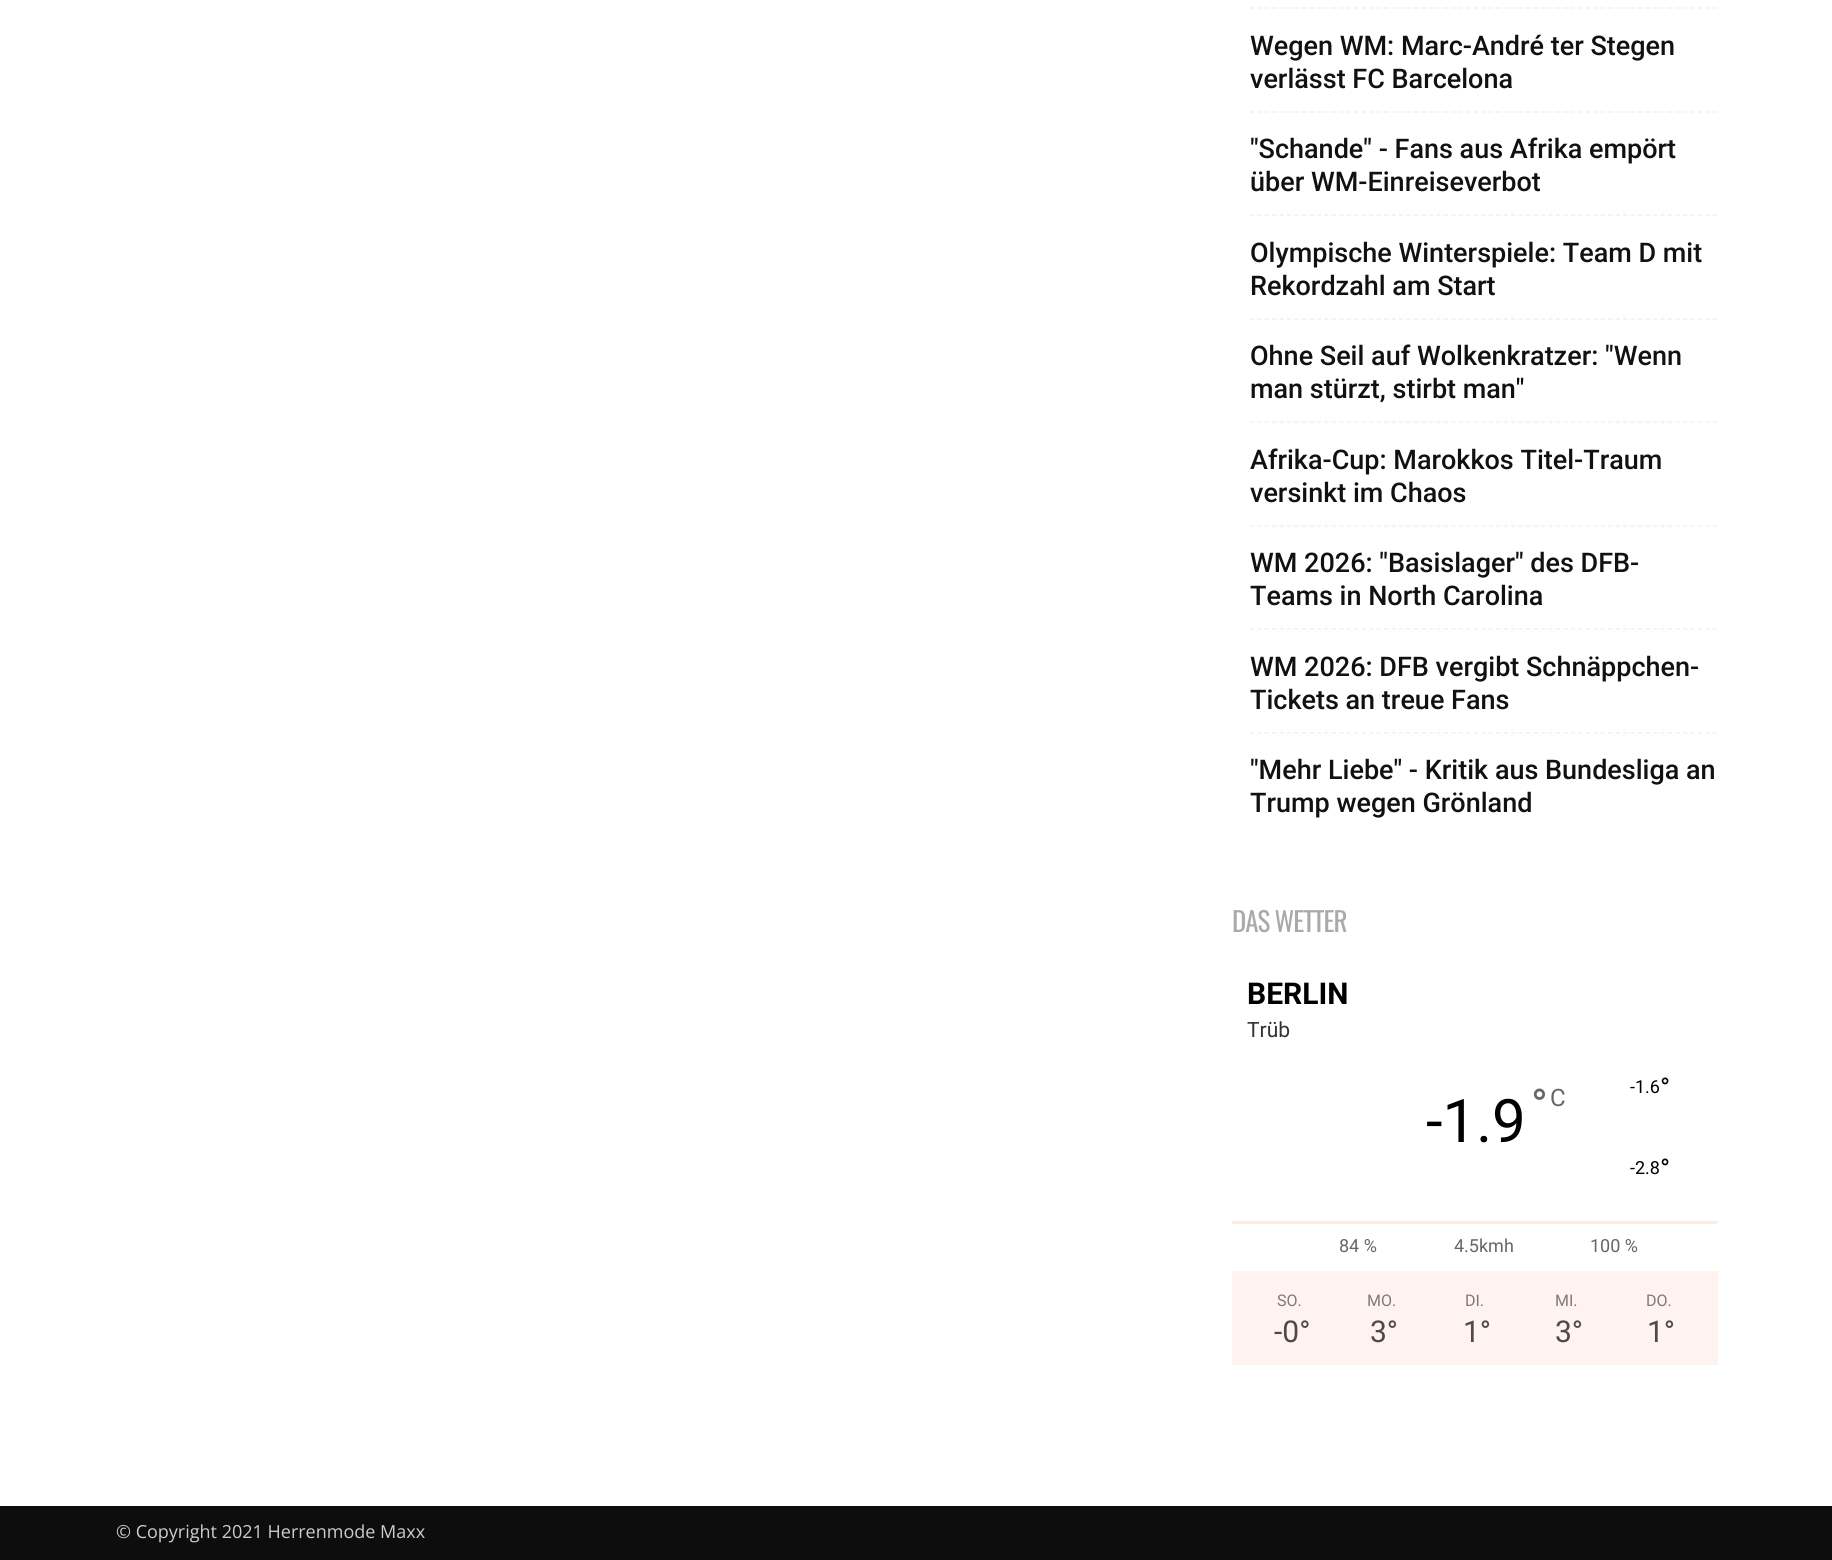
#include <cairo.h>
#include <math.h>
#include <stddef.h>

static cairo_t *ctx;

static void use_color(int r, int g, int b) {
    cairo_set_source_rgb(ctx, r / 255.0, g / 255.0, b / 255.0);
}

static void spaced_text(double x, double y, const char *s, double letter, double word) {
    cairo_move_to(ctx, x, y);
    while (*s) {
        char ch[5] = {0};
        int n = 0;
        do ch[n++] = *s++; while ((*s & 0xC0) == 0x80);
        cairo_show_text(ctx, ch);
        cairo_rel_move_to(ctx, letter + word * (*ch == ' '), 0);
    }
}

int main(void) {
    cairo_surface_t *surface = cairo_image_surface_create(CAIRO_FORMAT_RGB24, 1832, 1560);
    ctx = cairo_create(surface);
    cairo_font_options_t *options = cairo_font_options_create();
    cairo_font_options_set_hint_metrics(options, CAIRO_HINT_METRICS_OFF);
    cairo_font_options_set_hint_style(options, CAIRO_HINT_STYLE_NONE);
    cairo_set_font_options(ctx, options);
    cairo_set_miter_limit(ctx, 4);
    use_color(255, 255, 255);
    cairo_paint(ctx);
    cairo_new_path(ctx);
    cairo_move_to(ctx, 1249.5, 8);
    cairo_line_to(ctx, 1717.5, 8);
    use_color(241, 241, 241);
    cairo_set_line_width(ctx, 1.5);
    cairo_set_dash(ctx, (double[]){4.5, 2.97}, 2, 0);
    cairo_stroke(ctx);
    cairo_new_path(ctx);
    cairo_move_to(ctx, 1249.5, 112);
    cairo_line_to(ctx, 1717.5, 112);
    cairo_stroke(ctx);
    cairo_select_font_face(ctx, "Roboto Medium", CAIRO_FONT_SLANT_NORMAL, CAIRO_FONT_WEIGHT_NORMAL);
    cairo_set_font_size(ctx, 27);
    use_color(17, 17, 17);
    cairo_move_to(ctx, 1250, 55);
    cairo_show_text(ctx, "Wegen WM: Marc-André ter Stegen");
    cairo_move_to(ctx, 1250, 88);
    cairo_show_text(ctx, "verlässt FC Barcelona");
    cairo_new_path(ctx);
    cairo_move_to(ctx, 1249.5, 215);
    cairo_line_to(ctx, 1717.5, 215);
    use_color(241, 241, 241);
    cairo_stroke(ctx);
    use_color(17, 17, 17);
    cairo_move_to(ctx, 1250, 158);
    cairo_show_text(ctx, "\"Schande\" - Fans aus Afrika empört");
    cairo_move_to(ctx, 1250, 191);
    cairo_show_text(ctx, "über WM-Einreiseverbot");
    cairo_new_path(ctx);
    cairo_move_to(ctx, 1249.5, 319);
    cairo_line_to(ctx, 1717.5, 319);
    use_color(241, 241, 241);
    cairo_stroke(ctx);
    use_color(17, 17, 17);
    cairo_move_to(ctx, 1250, 262);
    cairo_show_text(ctx, "Olympische Winterspiele: Team D mit");
    cairo_move_to(ctx, 1250, 295);
    cairo_show_text(ctx, "Rekordzahl am Start");
    cairo_new_path(ctx);
    cairo_move_to(ctx, 1249.5, 422);
    cairo_line_to(ctx, 1717.5, 422);
    use_color(241, 241, 241);
    cairo_stroke(ctx);
    use_color(17, 17, 17);
    cairo_move_to(ctx, 1250, 365);
    cairo_show_text(ctx, "Ohne Seil auf Wolkenkratzer: \"Wenn");
    cairo_move_to(ctx, 1250, 398);
    cairo_show_text(ctx, "man stürzt, stirbt man\"");
    cairo_new_path(ctx);
    cairo_move_to(ctx, 1249.5, 526);
    cairo_line_to(ctx, 1717.5, 526);
    use_color(241, 241, 241);
    cairo_stroke(ctx);
    use_color(17, 17, 17);
    cairo_move_to(ctx, 1250, 469);
    cairo_show_text(ctx, "Afrika-Cup: Marokkos Titel-Traum");
    cairo_move_to(ctx, 1250, 502);
    cairo_show_text(ctx, "versinkt im Chaos");
    cairo_new_path(ctx);
    cairo_move_to(ctx, 1249.5, 629);
    cairo_line_to(ctx, 1717.5, 629);
    use_color(241, 241, 241);
    cairo_stroke(ctx);
    use_color(17, 17, 17);
    cairo_move_to(ctx, 1250, 572);
    cairo_show_text(ctx, "WM 2026: \"Basislager\" des DFB-");
    cairo_move_to(ctx, 1250, 605);
    cairo_show_text(ctx, "Teams in North Carolina");
    cairo_new_path(ctx);
    cairo_move_to(ctx, 1249.5, 733);
    cairo_line_to(ctx, 1717.5, 733);
    use_color(241, 241, 241);
    cairo_stroke(ctx);
    use_color(17, 17, 17);
    cairo_move_to(ctx, 1250, 676);
    cairo_show_text(ctx, "WM 2026: DFB vergibt Schnäppchen-");
    cairo_move_to(ctx, 1250, 709);
    cairo_show_text(ctx, "Tickets an treue Fans");
    cairo_move_to(ctx, 1250, 779);
    cairo_show_text(ctx, "\"Mehr Liebe\" - Kritik aus Bundesliga an");
    cairo_move_to(ctx, 1250, 812);
    cairo_show_text(ctx, "Trump wegen Grönland");
    cairo_select_font_face(ctx, "Oswald", CAIRO_FONT_SLANT_NORMAL, CAIRO_FONT_WEIGHT_NORMAL);
    use_color(170, 170, 170);
    spaced_text(1232, 932, "DAS WETTER", -1, 0);
    cairo_select_font_face(ctx, "Roboto", CAIRO_FONT_SLANT_NORMAL, CAIRO_FONT_WEIGHT_BOLD);
    cairo_set_font_size(ctx, 30);
    use_color(0, 0, 0);
    cairo_move_to(ctx, 1247, 1004);
    cairo_show_text(ctx, "BERLIN");
    cairo_select_font_face(ctx, "Roboto", CAIRO_FONT_SLANT_NORMAL, CAIRO_FONT_WEIGHT_NORMAL);
    cairo_set_font_size(ctx, 21);
    use_color(51, 51, 51);
    cairo_move_to(ctx, 1247, 1037);
    cairo_show_text(ctx, "Trüb");
    cairo_set_font_size(ctx, 60);
    use_color(0, 0, 0);
    cairo_move_to(ctx, 1426, 1142);
    cairo_show_text(ctx, "-1.9");
    cairo_set_font_size(ctx, 45);
    use_color(102, 102, 102);
    cairo_move_to(ctx, 1531, 1121);
    cairo_show_text(ctx, "°");
    cairo_set_font_size(ctx, 24);
    cairo_move_to(ctx, 1550, 1106);
    cairo_show_text(ctx, "C");
    cairo_set_font_size(ctx, 18);
    use_color(0, 0, 0);
    cairo_move_to(ctx, 1630, 1093);
    cairo_show_text(ctx, "-1.6");
    cairo_set_font_size(ctx, 27);
    cairo_move_to(ctx, 1660, 1097);
    cairo_show_text(ctx, "°");
    cairo_set_font_size(ctx, 18);
    cairo_move_to(ctx, 1630, 1174);
    cairo_show_text(ctx, "-2.8");
    cairo_set_font_size(ctx, 27);
    cairo_move_to(ctx, 1660, 1178);
    cairo_show_text(ctx, "°");
    use_color(254, 235, 226);
    cairo_rectangle(ctx, 1232, 1221, 486, 3);
    cairo_fill(ctx);
    cairo_set_font_size(ctx, 18);
    use_color(102, 102, 102);
    cairo_move_to(ctx, 1339, 1252);
    cairo_show_text(ctx, "84 %");
    cairo_move_to(ctx, 1454, 1252);
    cairo_show_text(ctx, "4.5kmh");
    cairo_move_to(ctx, 1590, 1252);
    cairo_show_text(ctx, "100 %");
    use_color(254, 243, 238);
    cairo_rectangle(ctx, 1232, 1271, 486, 94);
    cairo_fill(ctx);
    cairo_set_font_size(ctx, 16);
    use_color(127, 122, 119);
    cairo_move_to(ctx, 1277, 1306);
    cairo_show_text(ctx, "SO.");
    cairo_set_font_size(ctx, 30);
    use_color(76, 73, 71);
    cairo_move_to(ctx, 1274, 1342);
    cairo_show_text(ctx, "-0°");
    cairo_set_font_size(ctx, 16);
    use_color(127, 122, 119);
    cairo_move_to(ctx, 1367, 1306);
    cairo_show_text(ctx, "MO.");
    cairo_set_font_size(ctx, 30);
    use_color(76, 73, 71);
    cairo_move_to(ctx, 1370, 1342);
    cairo_show_text(ctx, "3°");
    cairo_set_font_size(ctx, 16);
    use_color(127, 122, 119);
    cairo_move_to(ctx, 1465, 1306);
    cairo_show_text(ctx, "DI.");
    cairo_set_font_size(ctx, 30);
    use_color(76, 73, 71);
    cairo_move_to(ctx, 1463, 1342);
    cairo_show_text(ctx, "1°");
    cairo_set_font_size(ctx, 16);
    use_color(127, 122, 119);
    cairo_move_to(ctx, 1555, 1306);
    cairo_show_text(ctx, "MI.");
    cairo_set_font_size(ctx, 30);
    use_color(76, 73, 71);
    cairo_move_to(ctx, 1555, 1342);
    cairo_show_text(ctx, "3°");
    cairo_set_font_size(ctx, 16);
    use_color(127, 122, 119);
    cairo_move_to(ctx, 1646, 1306);
    cairo_show_text(ctx, "DO.");
    cairo_set_font_size(ctx, 30);
    use_color(76, 73, 71);
    cairo_move_to(ctx, 1647, 1342);
    cairo_show_text(ctx, "1°");
    use_color(13, 13, 13);
    cairo_rectangle(ctx, 0, 1506, 1832, 54);
    cairo_fill(ctx);
    cairo_select_font_face(ctx, "Open Sans", CAIRO_FONT_SLANT_NORMAL, CAIRO_FONT_WEIGHT_NORMAL);
    cairo_set_font_size(ctx, 18);
    use_color(204, 204, 204);
    cairo_move_to(ctx, 116, 1538);
    cairo_show_text(ctx, "© Copyright 2021 Herrenmode Maxx");
    cairo_surface_write_to_png(surface, "result.png");
    cairo_font_options_destroy(options);
    cairo_destroy(ctx);
    cairo_surface_destroy(surface);
    return 0;
}
